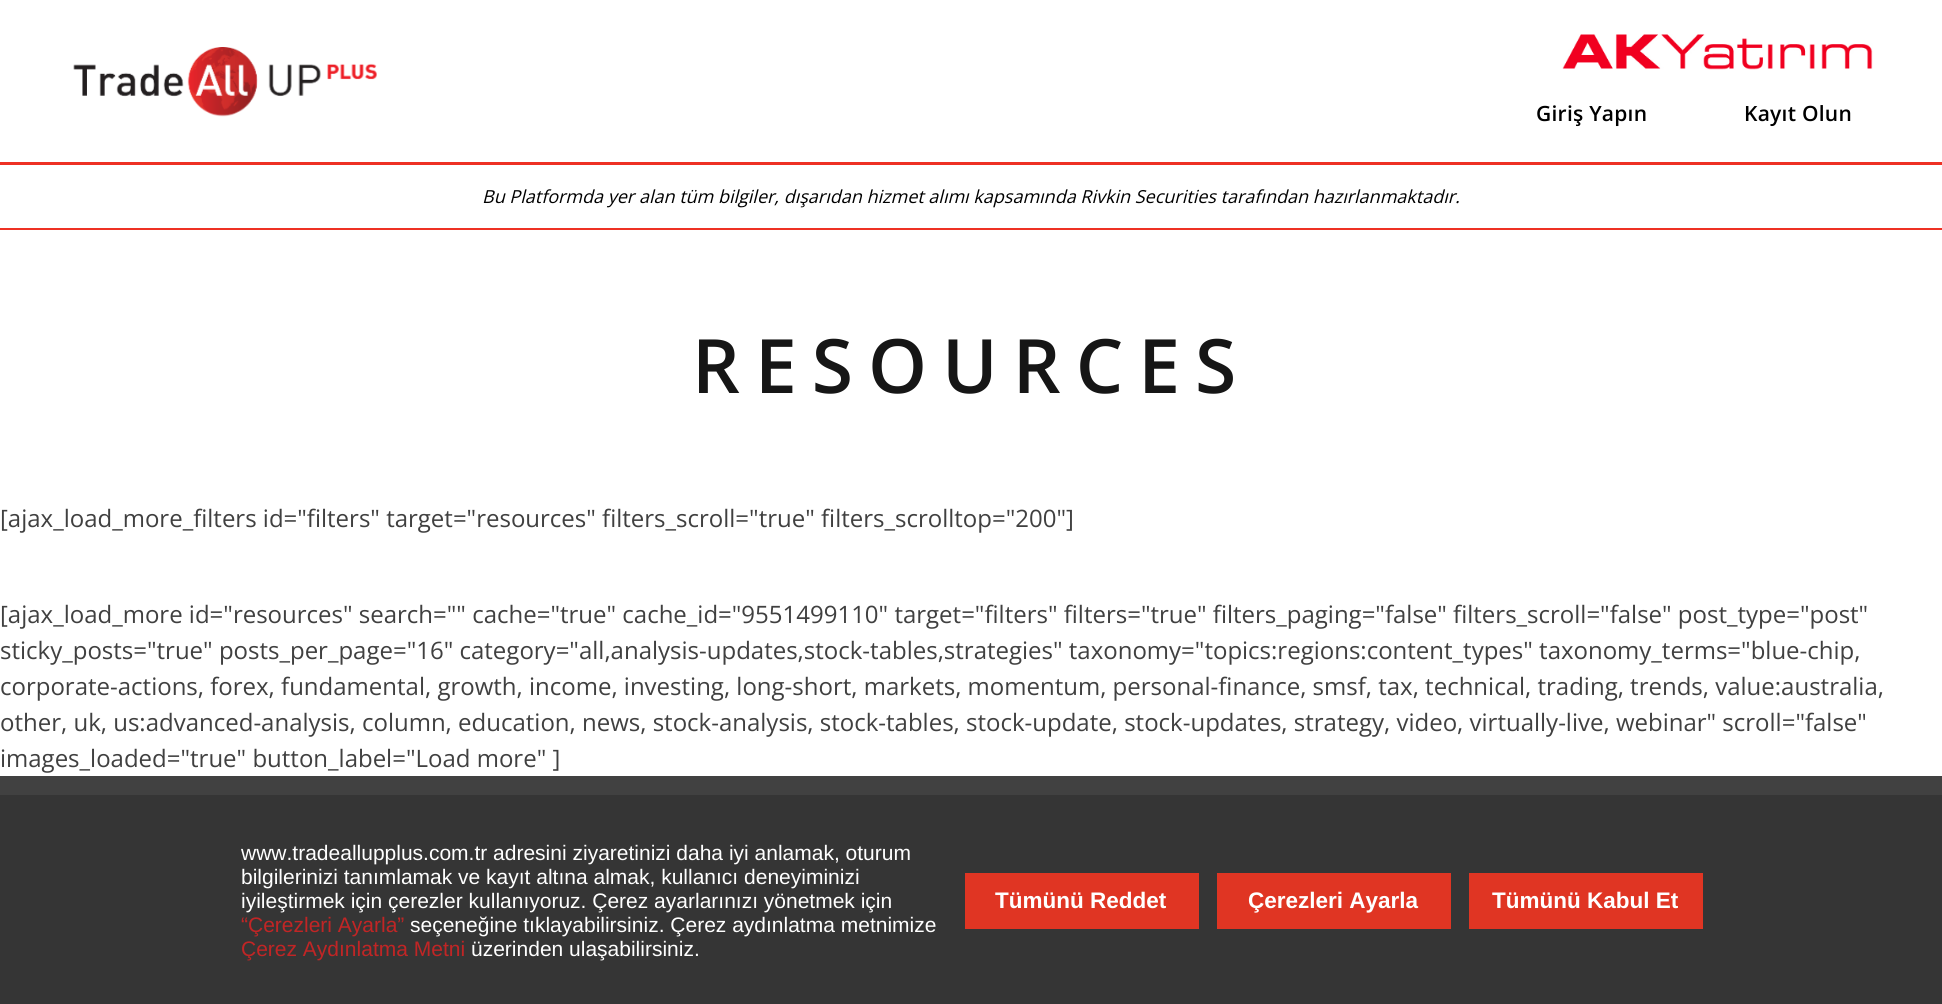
#include <cairo.h>
#include <math.h>
#include <stddef.h>

static cairo_t *ctx;

static void use_color(int r, int g, int b) {
    cairo_set_source_rgb(ctx, r / 255.0, g / 255.0, b / 255.0);
}

static void spaced_text(double x, double y, const char *s, double letter, double word) {
    cairo_move_to(ctx, x, y);
    while (*s) {
        char ch[5] = {0};
        int n = 0;
        do ch[n++] = *s++; while ((*s & 0xC0) == 0x80);
        cairo_show_text(ctx, ch);
        cairo_rel_move_to(ctx, letter + word * (*ch == ' '), 0);
    }
}

static void picture(const char *path, double x, double y, double w, double h) {
    cairo_surface_t *image = cairo_image_surface_create_from_png(path);
    cairo_save(ctx);
    cairo_set_source_surface(ctx, image, x, y);
    cairo_rectangle(ctx, x, y, w, h);
    cairo_fill(ctx);
    cairo_restore(ctx);
    cairo_surface_destroy(image);
}

int main(void) {
    cairo_surface_t *surface = cairo_image_surface_create(CAIRO_FORMAT_RGB24, 1942, 1004);
    ctx = cairo_create(surface);
    cairo_font_options_t *options = cairo_font_options_create();
    cairo_font_options_set_hint_metrics(options, CAIRO_HINT_METRICS_OFF);
    cairo_font_options_set_hint_style(options, CAIRO_HINT_STYLE_NONE);
    cairo_set_font_options(ctx, options);
    cairo_set_miter_limit(ctx, 4);
    use_color(255, 255, 255);
    cairo_paint(ctx);
    use_color(238, 49, 36);
    cairo_rectangle(ctx, 0, 162, 1942, 3);
    cairo_fill(ctx);
    picture("img1.png", 73, 47, 304, 70);
    picture("img2.png", 1562, 34, 311, 36);
    cairo_select_font_face(ctx, "Open Sans SemiBold", CAIRO_FONT_SLANT_NORMAL, CAIRO_FONT_WEIGHT_NORMAL);
    cairo_set_font_size(ctx, 21);
    use_color(0, 0, 0);
    spaced_text(1536, 121, "Giriş Yapın", 0.25, 0);
    spaced_text(1744, 121, "Kayıt Olun", 0.25, 0);
    use_color(238, 49, 36);
    cairo_rectangle(ctx, 0, 228, 1942, 2);
    cairo_fill(ctx);
    cairo_select_font_face(ctx, "Open Sans", CAIRO_FONT_SLANT_ITALIC, CAIRO_FONT_WEIGHT_NORMAL);
    cairo_set_font_size(ctx, 18);
    use_color(0, 0, 0);
    cairo_move_to(ctx, 482, 203);
    cairo_show_text(ctx, "Bu Platformda yer alan tüm bilgiler, dışarıdan hizmet alımı kapsamında Rivkin Securities tarafından hazırlanmaktadır.");
    cairo_select_font_face(ctx, "Open Sans SemiBold", CAIRO_FONT_SLANT_NORMAL, CAIRO_FONT_WEIGHT_NORMAL);
    cairo_set_font_size(ctx, 75);
    use_color(22, 22, 22);
    spaced_text(692, 393, "RESOURCES", 15, 0);
    cairo_select_font_face(ctx, "Open Sans", CAIRO_FONT_SLANT_NORMAL, CAIRO_FONT_WEIGHT_NORMAL);
    cairo_set_font_size(ctx, 24);
    use_color(64, 64, 64);
    cairo_move_to(ctx, 0, 527);
    cairo_show_text(ctx, "[ajax_load_more_filters id=\"filters\" target=\"resources\" filters_scroll=\"true\" filters_scrolltop=\"200\"]");
    cairo_move_to(ctx, 0, 623);
    cairo_show_text(ctx, "[ajax_load_more id=\"resources\" search=\"\" cache=\"true\" cache_id=\"9551499110\" target=\"filters\" filters=\"true\" filters_paging=\"false\" filters_scroll=\"false\" post_type=\"post\"");
    cairo_move_to(ctx, 0, 659);
    cairo_show_text(ctx, "sticky_posts=\"true\" posts_per_page=\"16\" category=\"all,analysis-updates,stock-tables,strategies\" taxonomy=\"topics:regions:content_types\" taxonomy_terms=\"blue-chip,");
    cairo_move_to(ctx, 0, 695);
    cairo_show_text(ctx, "corporate-actions, forex, fundamental, growth, income, investing, long-short, markets, momentum, personal-finance, smsf, tax, technical, trading, trends, value:australia,");
    cairo_move_to(ctx, 0, 731);
    cairo_show_text(ctx, "other, uk, us:advanced-analysis, column, education, news, stock-analysis, stock-tables, stock-update, stock-updates, strategy, video, virtually-live, webinar\" scroll=\"false\"");
    cairo_move_to(ctx, 0, 767);
    cairo_show_text(ctx, "images_loaded=\"true\" button_label=\"Load more\" ]");
    use_color(65, 65, 65);
    cairo_rectangle(ctx, 0, 776, 1942, 19);
    cairo_fill(ctx);
    use_color(53, 53, 53);
    cairo_rectangle(ctx, 0, 795, 1942, 209);
    cairo_fill(ctx);
    cairo_select_font_face(ctx, "Liberation Sans", CAIRO_FONT_SLANT_NORMAL, CAIRO_FONT_WEIGHT_NORMAL);
    cairo_set_font_size(ctx, 21);
    use_color(255, 255, 255);
    cairo_move_to(ctx, 241, 860);
    cairo_show_text(ctx, "www.tradeallupplus.com.tr adresini ziyaretinizi daha iyi anlamak, oturum");
    cairo_move_to(ctx, 241, 884);
    cairo_show_text(ctx, "bilgilerinizi tanımlamak ve kayıt altına almak, kullanıcı deneyiminizi");
    cairo_move_to(ctx, 241, 908);
    cairo_show_text(ctx, "iyileştirmek için çerezler kullanıyoruz. Çerez ayarlarınızı yönetmek için");
    use_color(193, 37, 37);
    cairo_move_to(ctx, 241, 932);
    cairo_show_text(ctx, "“Çerezleri Ayarla”");
    use_color(255, 255, 255);
    cairo_move_to(ctx, 410, 932);
    cairo_show_text(ctx, "seçeneğine tıklayabilirsiniz. Çerez aydınlatma metnimize");
    use_color(193, 37, 37);
    cairo_move_to(ctx, 241, 956);
    cairo_show_text(ctx, "Çerez Aydınlatma Metni");
    use_color(255, 255, 255);
    cairo_move_to(ctx, 471, 956);
    cairo_show_text(ctx, "üzerinden ulaşabilirsiniz.");
    use_color(224, 53, 35);
    cairo_rectangle(ctx, 965, 873, 234, 56);
    cairo_fill(ctx);
    cairo_select_font_face(ctx, "Liberation Sans", CAIRO_FONT_SLANT_NORMAL, CAIRO_FONT_WEIGHT_BOLD);
    cairo_set_font_size(ctx, 22.5);
    use_color(255, 255, 255);
    cairo_move_to(ctx, 995, 908);
    cairo_show_text(ctx, "Tümünü Reddet");
    use_color(224, 53, 35);
    cairo_rectangle(ctx, 1217, 873, 234, 56);
    cairo_fill(ctx);
    use_color(255, 255, 255);
    cairo_move_to(ctx, 1248, 908);
    cairo_show_text(ctx, "Çerezleri Ayarla");
    use_color(224, 53, 35);
    cairo_rectangle(ctx, 1469, 873, 234, 56);
    cairo_fill(ctx);
    use_color(255, 255, 255);
    cairo_move_to(ctx, 1492, 908);
    cairo_show_text(ctx, "Tümünü Kabul Et");
    cairo_surface_write_to_png(surface, "result.png");
    cairo_font_options_destroy(options);
    cairo_destroy(ctx);
    cairo_surface_destroy(surface);
    return 0;
}
